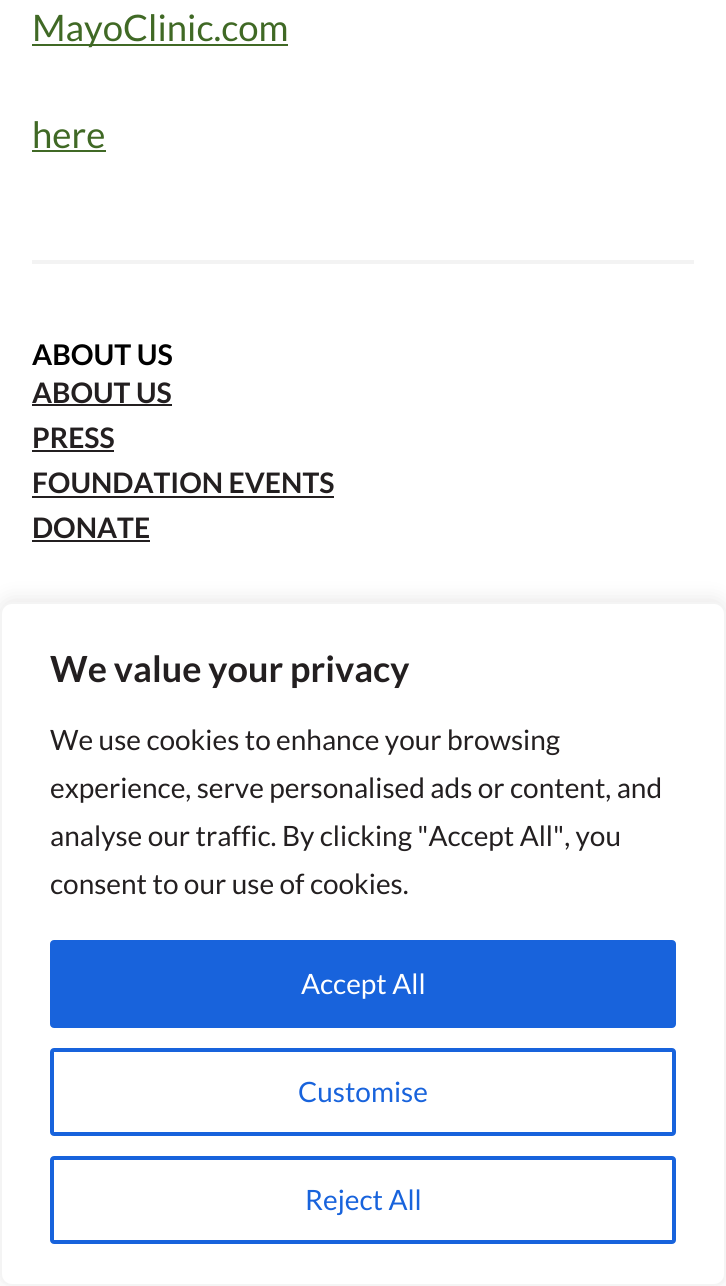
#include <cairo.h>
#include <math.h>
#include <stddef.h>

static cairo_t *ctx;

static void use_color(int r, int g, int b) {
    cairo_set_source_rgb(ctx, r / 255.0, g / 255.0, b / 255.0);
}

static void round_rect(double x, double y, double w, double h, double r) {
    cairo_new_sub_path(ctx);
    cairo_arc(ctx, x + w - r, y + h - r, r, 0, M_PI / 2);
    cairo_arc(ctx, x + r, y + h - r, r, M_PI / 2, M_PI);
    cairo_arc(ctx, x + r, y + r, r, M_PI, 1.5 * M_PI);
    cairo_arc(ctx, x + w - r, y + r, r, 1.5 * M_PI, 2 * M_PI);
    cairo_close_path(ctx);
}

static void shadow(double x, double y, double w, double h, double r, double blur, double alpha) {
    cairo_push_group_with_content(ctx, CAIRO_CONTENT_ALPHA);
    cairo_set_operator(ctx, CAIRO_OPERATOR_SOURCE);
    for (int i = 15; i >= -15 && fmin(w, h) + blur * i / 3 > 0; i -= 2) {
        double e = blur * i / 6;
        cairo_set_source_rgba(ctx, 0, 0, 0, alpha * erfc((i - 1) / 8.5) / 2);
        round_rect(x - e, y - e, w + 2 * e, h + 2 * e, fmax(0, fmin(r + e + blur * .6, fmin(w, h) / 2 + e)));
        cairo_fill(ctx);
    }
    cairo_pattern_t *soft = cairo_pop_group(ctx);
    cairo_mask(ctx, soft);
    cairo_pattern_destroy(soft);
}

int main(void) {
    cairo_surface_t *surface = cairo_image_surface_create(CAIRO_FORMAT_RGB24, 726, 1286);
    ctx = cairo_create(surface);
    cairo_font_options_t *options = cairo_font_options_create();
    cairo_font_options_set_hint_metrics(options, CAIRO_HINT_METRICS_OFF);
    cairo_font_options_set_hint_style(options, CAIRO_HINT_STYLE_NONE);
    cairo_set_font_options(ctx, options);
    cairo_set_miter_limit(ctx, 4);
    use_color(255, 255, 255);
    cairo_paint(ctx);
    use_color(64, 105, 37);
    cairo_rectangle(ctx, 32, 44, 256, 2);
    cairo_fill(ctx);
    cairo_select_font_face(ctx, "Lato", CAIRO_FONT_SLANT_NORMAL, CAIRO_FONT_WEIGHT_NORMAL);
    cairo_set_font_size(ctx, 36.5);
    cairo_move_to(ctx, 32, 41);
    cairo_show_text(ctx, "MayoClinic.com");
    cairo_move_to(ctx, 32, 148);
    cairo_show_text(ctx, "here");
    cairo_rectangle(ctx, 32, 150, 74, 2);
    cairo_fill(ctx);
    use_color(243, 243, 243);
    cairo_rectangle(ctx, 32, 260, 662, 4);
    cairo_fill(ctx);
    cairo_select_font_face(ctx, "Lato", CAIRO_FONT_SLANT_NORMAL, CAIRO_FONT_WEIGHT_BOLD);
    cairo_set_font_size(ctx, 28.5);
    use_color(0, 0, 0);
    cairo_move_to(ctx, 32, 365);
    cairo_show_text(ctx, "ABOUT US");
    cairo_set_font_size(ctx, 28.25);
    use_color(35, 31, 32);
    cairo_move_to(ctx, 32, 403);
    cairo_show_text(ctx, "ABOUT US");
    cairo_rectangle(ctx, 32, 404, 140, 2);
    cairo_fill(ctx);
    cairo_move_to(ctx, 32, 448);
    cairo_show_text(ctx, "PRESS");
    cairo_rectangle(ctx, 32, 450, 82, 2);
    cairo_fill(ctx);
    cairo_move_to(ctx, 32, 493);
    cairo_show_text(ctx, "FOUNDATION EVENTS");
    cairo_rectangle(ctx, 32, 496, 302, 2);
    cairo_fill(ctx);
    cairo_move_to(ctx, 32, 538);
    cairo_show_text(ctx, "DONATE");
    cairo_rectangle(ctx, 32, 540, 118, 2);
    cairo_fill(ctx);
    use_color(172, 171, 171);
    shadow(0, 600, 726, 684, 12, 10, 0.3);
    use_color(255, 255, 255);
    round_rect(1, 603, 724, 682, 11);
    cairo_fill_preserve(ctx);
    use_color(244, 244, 244);
    cairo_stroke(ctx);
    cairo_set_font_size(ctx, 36);
    use_color(35, 31, 32);
    cairo_move_to(ctx, 50, 682);
    cairo_show_text(ctx, "We value your privacy");
    cairo_select_font_face(ctx, "Lato", CAIRO_FONT_SLANT_NORMAL, CAIRO_FONT_WEIGHT_NORMAL);
    cairo_set_font_size(ctx, 28);
    cairo_move_to(ctx, 50, 750);
    cairo_show_text(ctx, "We use cookies to enhance your browsing");
    cairo_move_to(ctx, 50, 798);
    cairo_show_text(ctx, "experience, serve personalised ads or content, and");
    cairo_move_to(ctx, 50, 846);
    cairo_show_text(ctx, "analyse our traffic. By clicking \"Accept All\", you");
    cairo_move_to(ctx, 50, 894);
    cairo_show_text(ctx, "consent to our use of cookies.");
    use_color(24, 99, 220);
    round_rect(52, 942, 622, 84, 2);
    cairo_fill_preserve(ctx);
    cairo_set_line_width(ctx, 4);
    cairo_stroke(ctx);
    use_color(255, 255, 255);
    cairo_move_to(ctx, 301, 994);
    cairo_show_text(ctx, "Accept All");
    round_rect(52, 1050, 622, 84, 2);
    use_color(24, 99, 220);
    cairo_stroke(ctx);
    cairo_move_to(ctx, 298, 1102);
    cairo_show_text(ctx, "Customise");
    round_rect(52, 1158, 622, 84, 2);
    cairo_stroke(ctx);
    cairo_move_to(ctx, 305, 1210);
    cairo_show_text(ctx, "Reject All");
    cairo_surface_write_to_png(surface, "result.png");
    cairo_font_options_destroy(options);
    cairo_destroy(ctx);
    cairo_surface_destroy(surface);
    return 0;
}
